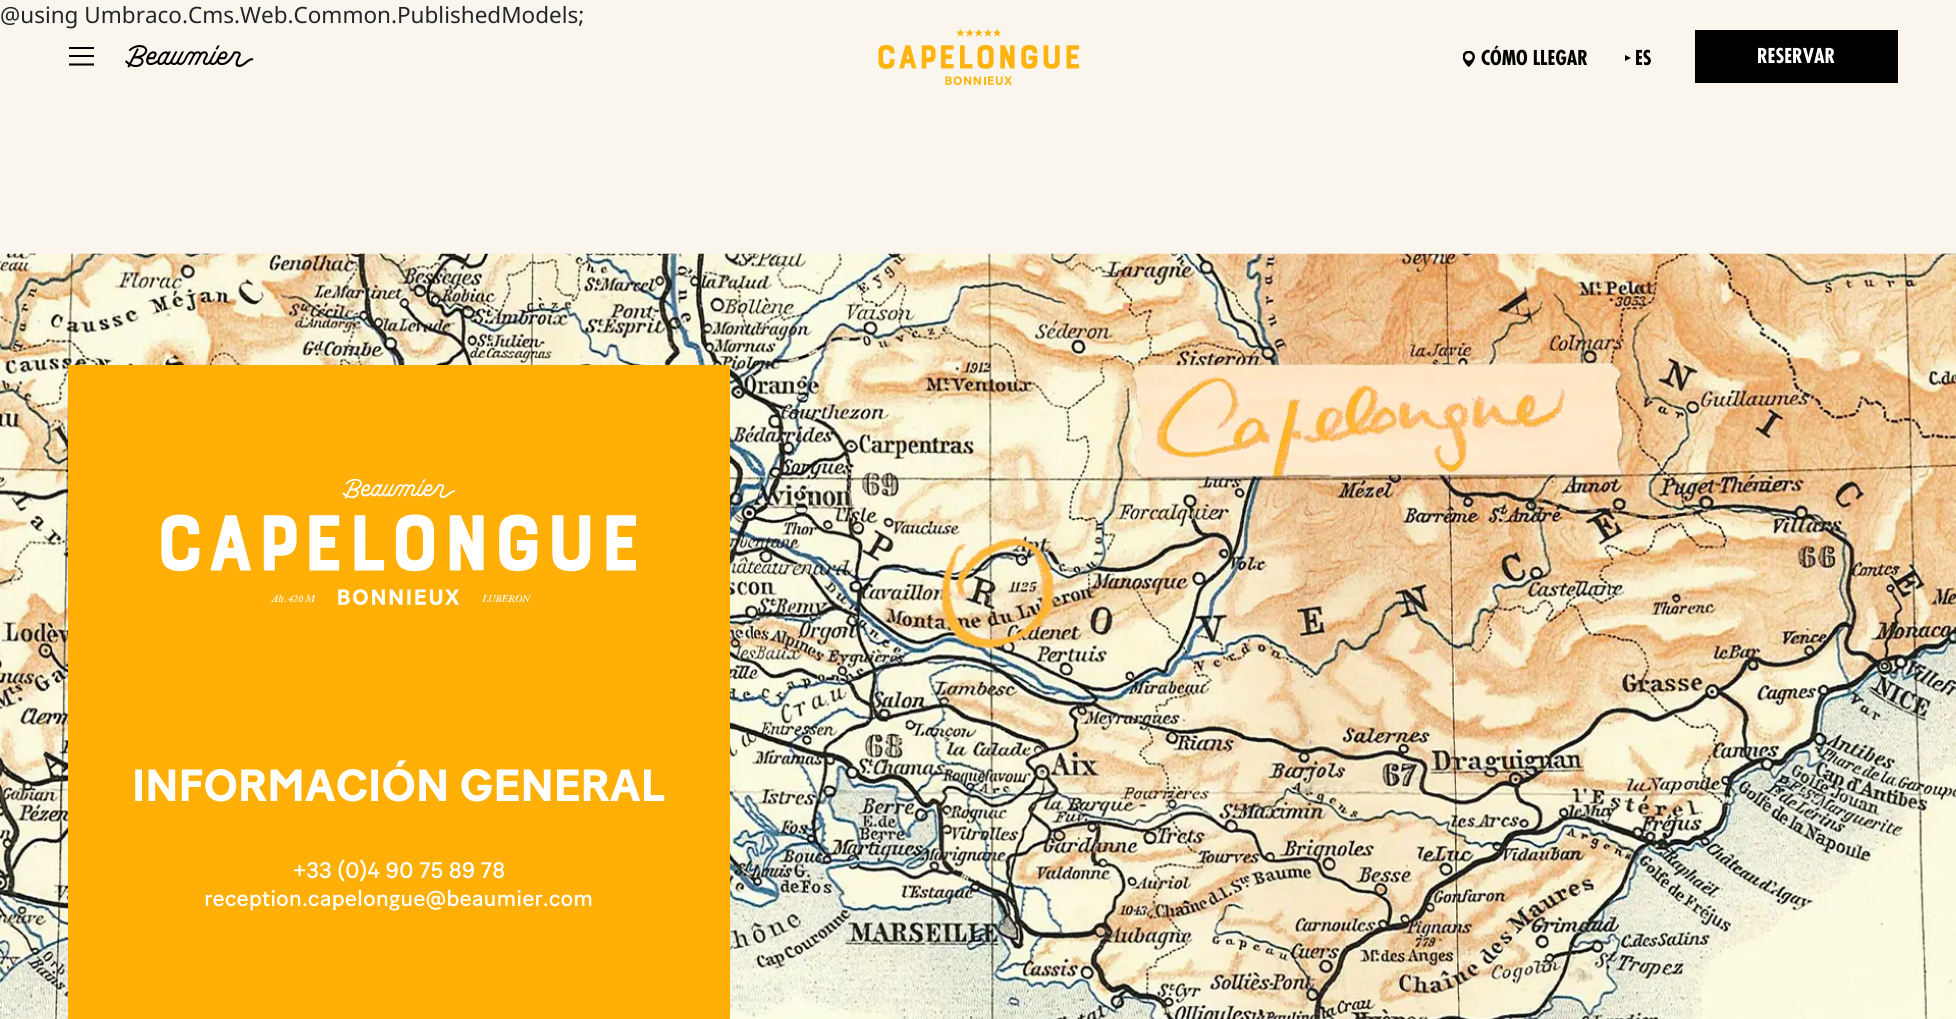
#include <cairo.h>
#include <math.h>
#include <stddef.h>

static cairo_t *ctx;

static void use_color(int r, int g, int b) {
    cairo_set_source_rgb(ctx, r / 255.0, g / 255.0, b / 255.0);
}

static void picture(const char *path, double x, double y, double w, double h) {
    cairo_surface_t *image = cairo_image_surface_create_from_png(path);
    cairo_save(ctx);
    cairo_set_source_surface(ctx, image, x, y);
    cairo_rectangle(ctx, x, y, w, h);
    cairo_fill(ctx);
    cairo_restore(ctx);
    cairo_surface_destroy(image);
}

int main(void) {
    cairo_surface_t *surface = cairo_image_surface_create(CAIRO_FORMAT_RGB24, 1956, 1019);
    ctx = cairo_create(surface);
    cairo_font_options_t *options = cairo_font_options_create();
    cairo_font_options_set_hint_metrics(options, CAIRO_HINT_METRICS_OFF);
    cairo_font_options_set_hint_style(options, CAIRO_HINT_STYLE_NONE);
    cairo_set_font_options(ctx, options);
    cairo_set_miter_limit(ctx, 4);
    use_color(250, 246, 238);
    cairo_paint(ctx);
    cairo_select_font_face(ctx, "Noto Sans", CAIRO_FONT_SLANT_NORMAL, CAIRO_FONT_WEIGHT_NORMAL);
    cairo_set_font_size(ctx, 22.5);
    use_color(33, 37, 41);
    cairo_move_to(ctx, 0, 23);
    cairo_show_text(ctx, "@using Umbraco.Cms.Web.Common.PublishedModels;");
    cairo_new_path(ctx);
    cairo_move_to(ctx, 94, 64.5);
    cairo_line_to(ctx, 69, 64.5);
    use_color(0, 0, 0);
    cairo_set_line_width(ctx, 2.1);
    cairo_stroke(ctx);
    cairo_rectangle(ctx, 69, 55, 25, 2);
    cairo_fill(ctx);
    cairo_rectangle(ctx, 69, 47, 25, 2);
    cairo_fill(ctx);
    picture("img1.png", 125, 45, 129, 23);
    picture("img2.png", 878, 29, 202, 56);
    picture("img3.png", 1463, 51, 12, 16);
    cairo_select_font_face(ctx, "Futura", CAIRO_FONT_SLANT_NORMAL, CAIRO_FONT_WEIGHT_BOLD);
    cairo_set_font_size(ctx, 20);
    cairo_move_to(ctx, 1481, 65);
    cairo_show_text(ctx, "CÓMO LLEGAR");
    cairo_new_path(ctx);
    cairo_move_to(ctx, 1625, 55);
    cairo_line_to(ctx, 1631, 58);
    cairo_line_to(ctx, 1625, 61);
    cairo_close_path(ctx);
    cairo_fill(ctx);
    cairo_move_to(ctx, 1635, 65);
    cairo_show_text(ctx, "ES");
    cairo_rectangle(ctx, 1695, 30, 203, 53);
    cairo_fill(ctx);
    use_color(255, 255, 255);
    cairo_move_to(ctx, 1757, 63);
    cairo_show_text(ctx, "RESERVAR");
    picture("img4.png", 0, 253, 1956, 766);
    use_color(255, 175, 5);
    cairo_rectangle(ctx, 68, 365, 662, 654);
    cairo_fill(ctx);
    picture("img5.png", 161, 479, 475, 126);
    cairo_select_font_face(ctx, "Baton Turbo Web", CAIRO_FONT_SLANT_NORMAL, CAIRO_FONT_WEIGHT_BOLD);
    cairo_set_font_size(ctx, 45);
    use_color(255, 255, 255);
    cairo_move_to(ctx, 132, 801);
    cairo_show_text(ctx, "INFORMACIÓN GENERAL");
    cairo_select_font_face(ctx, "Baton Turbo Web", CAIRO_FONT_SLANT_NORMAL, CAIRO_FONT_WEIGHT_NORMAL);
    cairo_set_font_size(ctx, 22.5);
    cairo_move_to(ctx, 293, 878);
    cairo_show_text(ctx, "+33 (0)4 90 75 89 78");
    cairo_move_to(ctx, 204, 906);
    cairo_show_text(ctx, "reception.capelongue@beaumier.com");
    cairo_surface_write_to_png(surface, "result.png");
    cairo_font_options_destroy(options);
    cairo_destroy(ctx);
    cairo_surface_destroy(surface);
    return 0;
}
